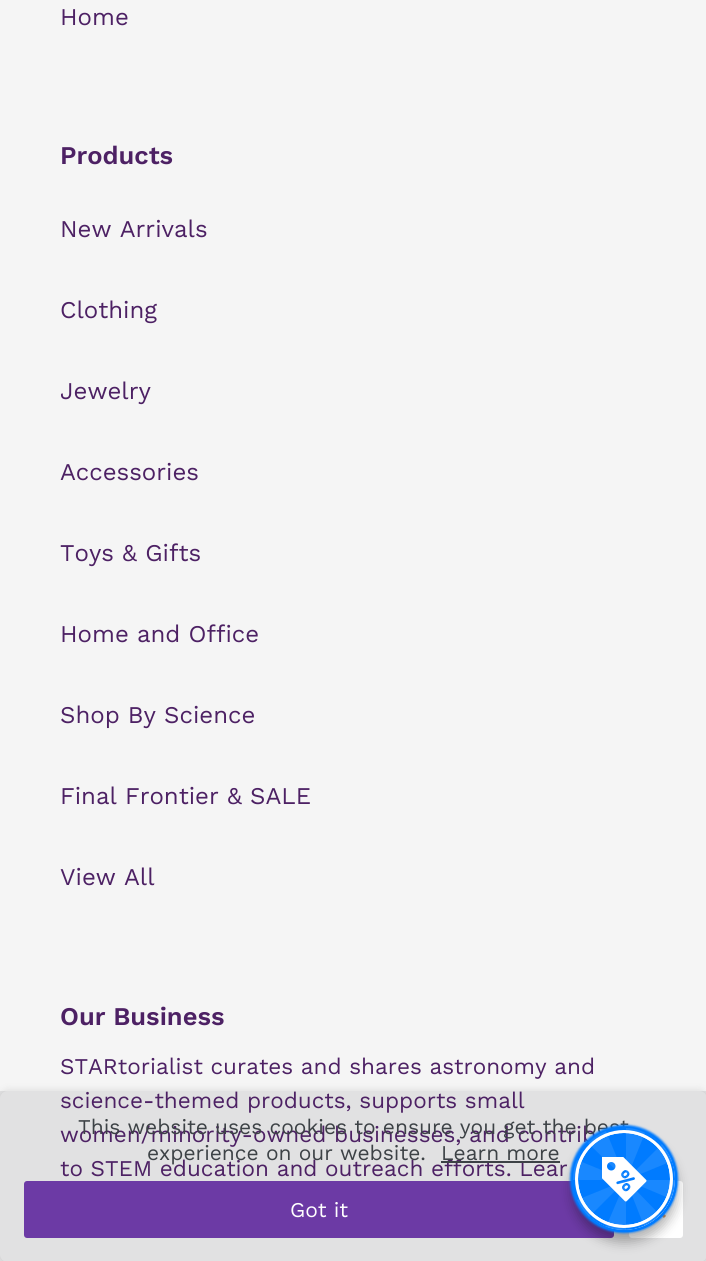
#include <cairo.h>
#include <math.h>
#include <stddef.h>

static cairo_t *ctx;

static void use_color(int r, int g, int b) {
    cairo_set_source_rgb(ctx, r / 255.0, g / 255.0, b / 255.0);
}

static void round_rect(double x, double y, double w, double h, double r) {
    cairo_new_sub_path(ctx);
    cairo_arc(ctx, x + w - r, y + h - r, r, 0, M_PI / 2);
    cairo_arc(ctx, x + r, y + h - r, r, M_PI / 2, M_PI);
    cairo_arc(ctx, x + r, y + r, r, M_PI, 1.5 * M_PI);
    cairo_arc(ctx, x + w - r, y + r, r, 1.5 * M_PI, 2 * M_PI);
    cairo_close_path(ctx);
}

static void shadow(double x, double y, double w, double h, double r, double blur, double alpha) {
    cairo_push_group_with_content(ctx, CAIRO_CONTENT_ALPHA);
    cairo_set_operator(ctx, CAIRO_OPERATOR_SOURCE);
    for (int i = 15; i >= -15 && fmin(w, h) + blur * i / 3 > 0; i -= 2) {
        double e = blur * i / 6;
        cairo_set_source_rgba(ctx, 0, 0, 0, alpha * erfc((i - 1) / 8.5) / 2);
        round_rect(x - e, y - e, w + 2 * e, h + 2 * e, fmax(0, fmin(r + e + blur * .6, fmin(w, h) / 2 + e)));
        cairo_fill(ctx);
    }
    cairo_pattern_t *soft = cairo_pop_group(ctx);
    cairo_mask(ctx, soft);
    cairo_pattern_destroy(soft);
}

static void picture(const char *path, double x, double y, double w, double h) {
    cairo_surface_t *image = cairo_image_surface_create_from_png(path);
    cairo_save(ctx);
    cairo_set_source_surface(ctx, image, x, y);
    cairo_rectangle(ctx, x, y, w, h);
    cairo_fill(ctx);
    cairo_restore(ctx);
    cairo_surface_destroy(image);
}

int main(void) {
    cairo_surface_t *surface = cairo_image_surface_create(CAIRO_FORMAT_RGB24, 706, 1261);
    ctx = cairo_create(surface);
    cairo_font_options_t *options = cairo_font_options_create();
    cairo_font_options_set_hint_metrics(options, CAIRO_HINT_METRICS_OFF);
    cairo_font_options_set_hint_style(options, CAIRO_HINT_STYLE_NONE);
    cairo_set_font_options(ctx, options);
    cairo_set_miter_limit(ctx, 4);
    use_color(245, 245, 245);
    cairo_paint(ctx);
    use_color(225, 225, 226);
    cairo_rectangle(ctx, 0, 1091, 706, 170);
    cairo_fill(ctx);
    cairo_select_font_face(ctx, "Work Sans", CAIRO_FONT_SLANT_NORMAL, CAIRO_FONT_WEIGHT_NORMAL);
    cairo_set_font_size(ctx, 24);
    use_color(77, 33, 100);
    cairo_move_to(ctx, 60, 25);
    cairo_show_text(ctx, "Home");
    cairo_select_font_face(ctx, "Work Sans SemiBold", CAIRO_FONT_SLANT_NORMAL, CAIRO_FONT_WEIGHT_NORMAL);
    cairo_set_font_size(ctx, 25.5);
    cairo_move_to(ctx, 60, 164);
    cairo_show_text(ctx, "Products");
    cairo_select_font_face(ctx, "Work Sans", CAIRO_FONT_SLANT_NORMAL, CAIRO_FONT_WEIGHT_NORMAL);
    cairo_set_font_size(ctx, 24);
    cairo_move_to(ctx, 60, 237);
    cairo_show_text(ctx, "New Arrivals");
    cairo_move_to(ctx, 60, 318);
    cairo_show_text(ctx, "Clothing");
    cairo_move_to(ctx, 60, 399);
    cairo_show_text(ctx, "Jewelry");
    cairo_move_to(ctx, 60, 480);
    cairo_show_text(ctx, "Accessories");
    cairo_move_to(ctx, 60, 561);
    cairo_show_text(ctx, "Toys & Gifts");
    cairo_move_to(ctx, 60, 642);
    cairo_show_text(ctx, "Home and Office");
    cairo_move_to(ctx, 60, 723);
    cairo_show_text(ctx, "Shop By Science");
    cairo_move_to(ctx, 60, 804);
    cairo_show_text(ctx, "Final Frontier & SALE");
    cairo_move_to(ctx, 60, 885);
    cairo_show_text(ctx, "View All");
    cairo_select_font_face(ctx, "Work Sans SemiBold", CAIRO_FONT_SLANT_NORMAL, CAIRO_FONT_WEIGHT_NORMAL);
    cairo_set_font_size(ctx, 25.5);
    cairo_move_to(ctx, 60, 1025);
    cairo_show_text(ctx, "Our Business");
    cairo_select_font_face(ctx, "Work Sans", CAIRO_FONT_SLANT_NORMAL, CAIRO_FONT_WEIGHT_NORMAL);
    cairo_set_font_size(ctx, 22.5);
    cairo_move_to(ctx, 60, 1074);
    cairo_show_text(ctx, "STARtorialist curates and shares astronomy and");
    cairo_move_to(ctx, 60, 1108);
    cairo_show_text(ctx, "science-themed products, supports small");
    cairo_move_to(ctx, 60, 1142);
    cairo_show_text(ctx, "women/minority-owned businesses, and contrib");
    cairo_move_to(ctx, 60, 1176);
    cairo_show_text(ctx, "to STEM education and outreach efforts. Lear");
    cairo_save(ctx);
    cairo_set_fill_rule(ctx, CAIRO_FILL_RULE_EVEN_ODD);
    cairo_new_path(ctx);
    cairo_move_to(ctx, 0, 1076);
    cairo_line_to(ctx, 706, 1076);
    cairo_line_to(ctx, 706, 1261);
    cairo_line_to(ctx, 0, 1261);
    cairo_close_path(ctx);
    cairo_move_to(ctx, 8, 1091);
    cairo_line_to(ctx, 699, 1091);
    cairo_curve_to(ctx, 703.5, 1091, 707, 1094.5, 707, 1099);
    cairo_line_to(ctx, 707, 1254);
    cairo_curve_to(ctx, 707, 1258.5, 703.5, 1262, 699, 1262);
    cairo_line_to(ctx, 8, 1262);
    cairo_curve_to(ctx, 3.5, 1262, 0, 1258.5, 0, 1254);
    cairo_line_to(ctx, 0, 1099);
    cairo_curve_to(ctx, 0, 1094.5, 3.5, 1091, 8, 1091);
    cairo_close_path(ctx);
    cairo_clip(ctx);
    use_color(0, 0, 0);
    shadow(0, 1091, 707, 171, 8, 4.5, 0.12);
    cairo_restore(ctx);
    cairo_set_font_size(ctx, 21);
    use_color(61, 66, 70);
    cairo_move_to(ctx, 78, 1134);
    cairo_show_text(ctx, "This website uses cookies to ensure you get the best");
    cairo_move_to(ctx, 147, 1160);
    cairo_show_text(ctx, "experience on our website.");
    cairo_move_to(ctx, 441, 1160);
    cairo_show_text(ctx, "Learn more");
    cairo_rectangle(ctx, 441, 1161, 119, 2);
    cairo_fill(ctx);
    use_color(108, 58, 165);
    round_rect(24, 1181, 590, 57, 3);
    cairo_fill(ctx);
    use_color(255, 255, 255);
    cairo_move_to(ctx, 290, 1217);
    cairo_show_text(ctx, "Got it");
    round_rect(629, 1181, 54, 57, 3);
    cairo_fill(ctx);
    picture("img1.png", 662, 1214, 4, 4);
    use_color(0, 0, 0);
    shadow(572, 1137, 105, 105, 52.5, 6, 0.3);
    use_color(0, 123, 255);
    shadow(570, 1125, 108, 108, 54, 1, 1);
    use_color(0, 123, 255);
    cairo_arc(ctx, 624.5, 1179.5, 52.5, 0, 2 * M_PI);
    cairo_fill(ctx);
    cairo_arc(ctx, 624, 1179, 48.5, 0, 2 * M_PI);
    use_color(255, 255, 255);
    cairo_set_line_width(ctx, 5);
    cairo_stroke(ctx);
    cairo_arc(ctx, 624, 1179, 48.5, 0, 2 * M_PI);
    cairo_stroke(ctx);
    cairo_arc(ctx, 624, 1179, 50, 0, 2 * M_PI);
    use_color(0, 123, 255);
    cairo_set_line_width(ctx, 2);
    cairo_stroke(ctx);
    cairo_arc(ctx, 624.5, 1179.5, 51.5, 0, 2 * M_PI);
    cairo_stroke(ctx);
    cairo_set_source_rgba(ctx, 1, 1, 1, 0.1);
    cairo_new_path(ctx);
    cairo_move_to(ctx, 606, 1131);
    cairo_curve_to(ctx, 599, 1134, 593, 1138, 588, 1143);
    cairo_line_to(ctx, 626, 1180);
    cairo_line_to(ctx, 577, 1160);
    cairo_curve_to(ctx, 574, 1166, 573, 1173, 573, 1180);
    cairo_line_to(ctx, 626, 1180);
    cairo_line_to(ctx, 577, 1200);
    cairo_curve_to(ctx, 580, 1206, 584, 1212, 589, 1217);
    cairo_line_to(ctx, 626, 1180);
    cairo_line_to(ctx, 606, 1227);
    cairo_curve_to(ctx, 613, 1229, 619, 1230, 626, 1230);
    cairo_line_to(ctx, 626, 1180);
    cairo_line_to(ctx, 644, 1226);
    cairo_curve_to(ctx, 650, 1223, 656, 1219, 660, 1215);
    cairo_line_to(ctx, 626, 1180);
    cairo_line_to(ctx, 671, 1199);
    cairo_curve_to(ctx, 673, 1193, 675, 1187, 675, 1180);
    cairo_line_to(ctx, 626, 1180);
    cairo_line_to(ctx, 672, 1161);
    cairo_curve_to(ctx, 670, 1155, 666, 1149, 662, 1144);
    cairo_line_to(ctx, 626, 1180);
    cairo_line_to(ctx, 645, 1133);
    cairo_curve_to(ctx, 640, 1130, 633, 1128, 626, 1128);
    cairo_line_to(ctx, 626, 1180);
    cairo_close_path(ctx);
    cairo_fill(ctx);
    picture("img2.png", 602, 1157, 45, 45);
    cairo_surface_write_to_png(surface, "result.png");
    cairo_font_options_destroy(options);
    cairo_destroy(ctx);
    cairo_surface_destroy(surface);
    return 0;
}
